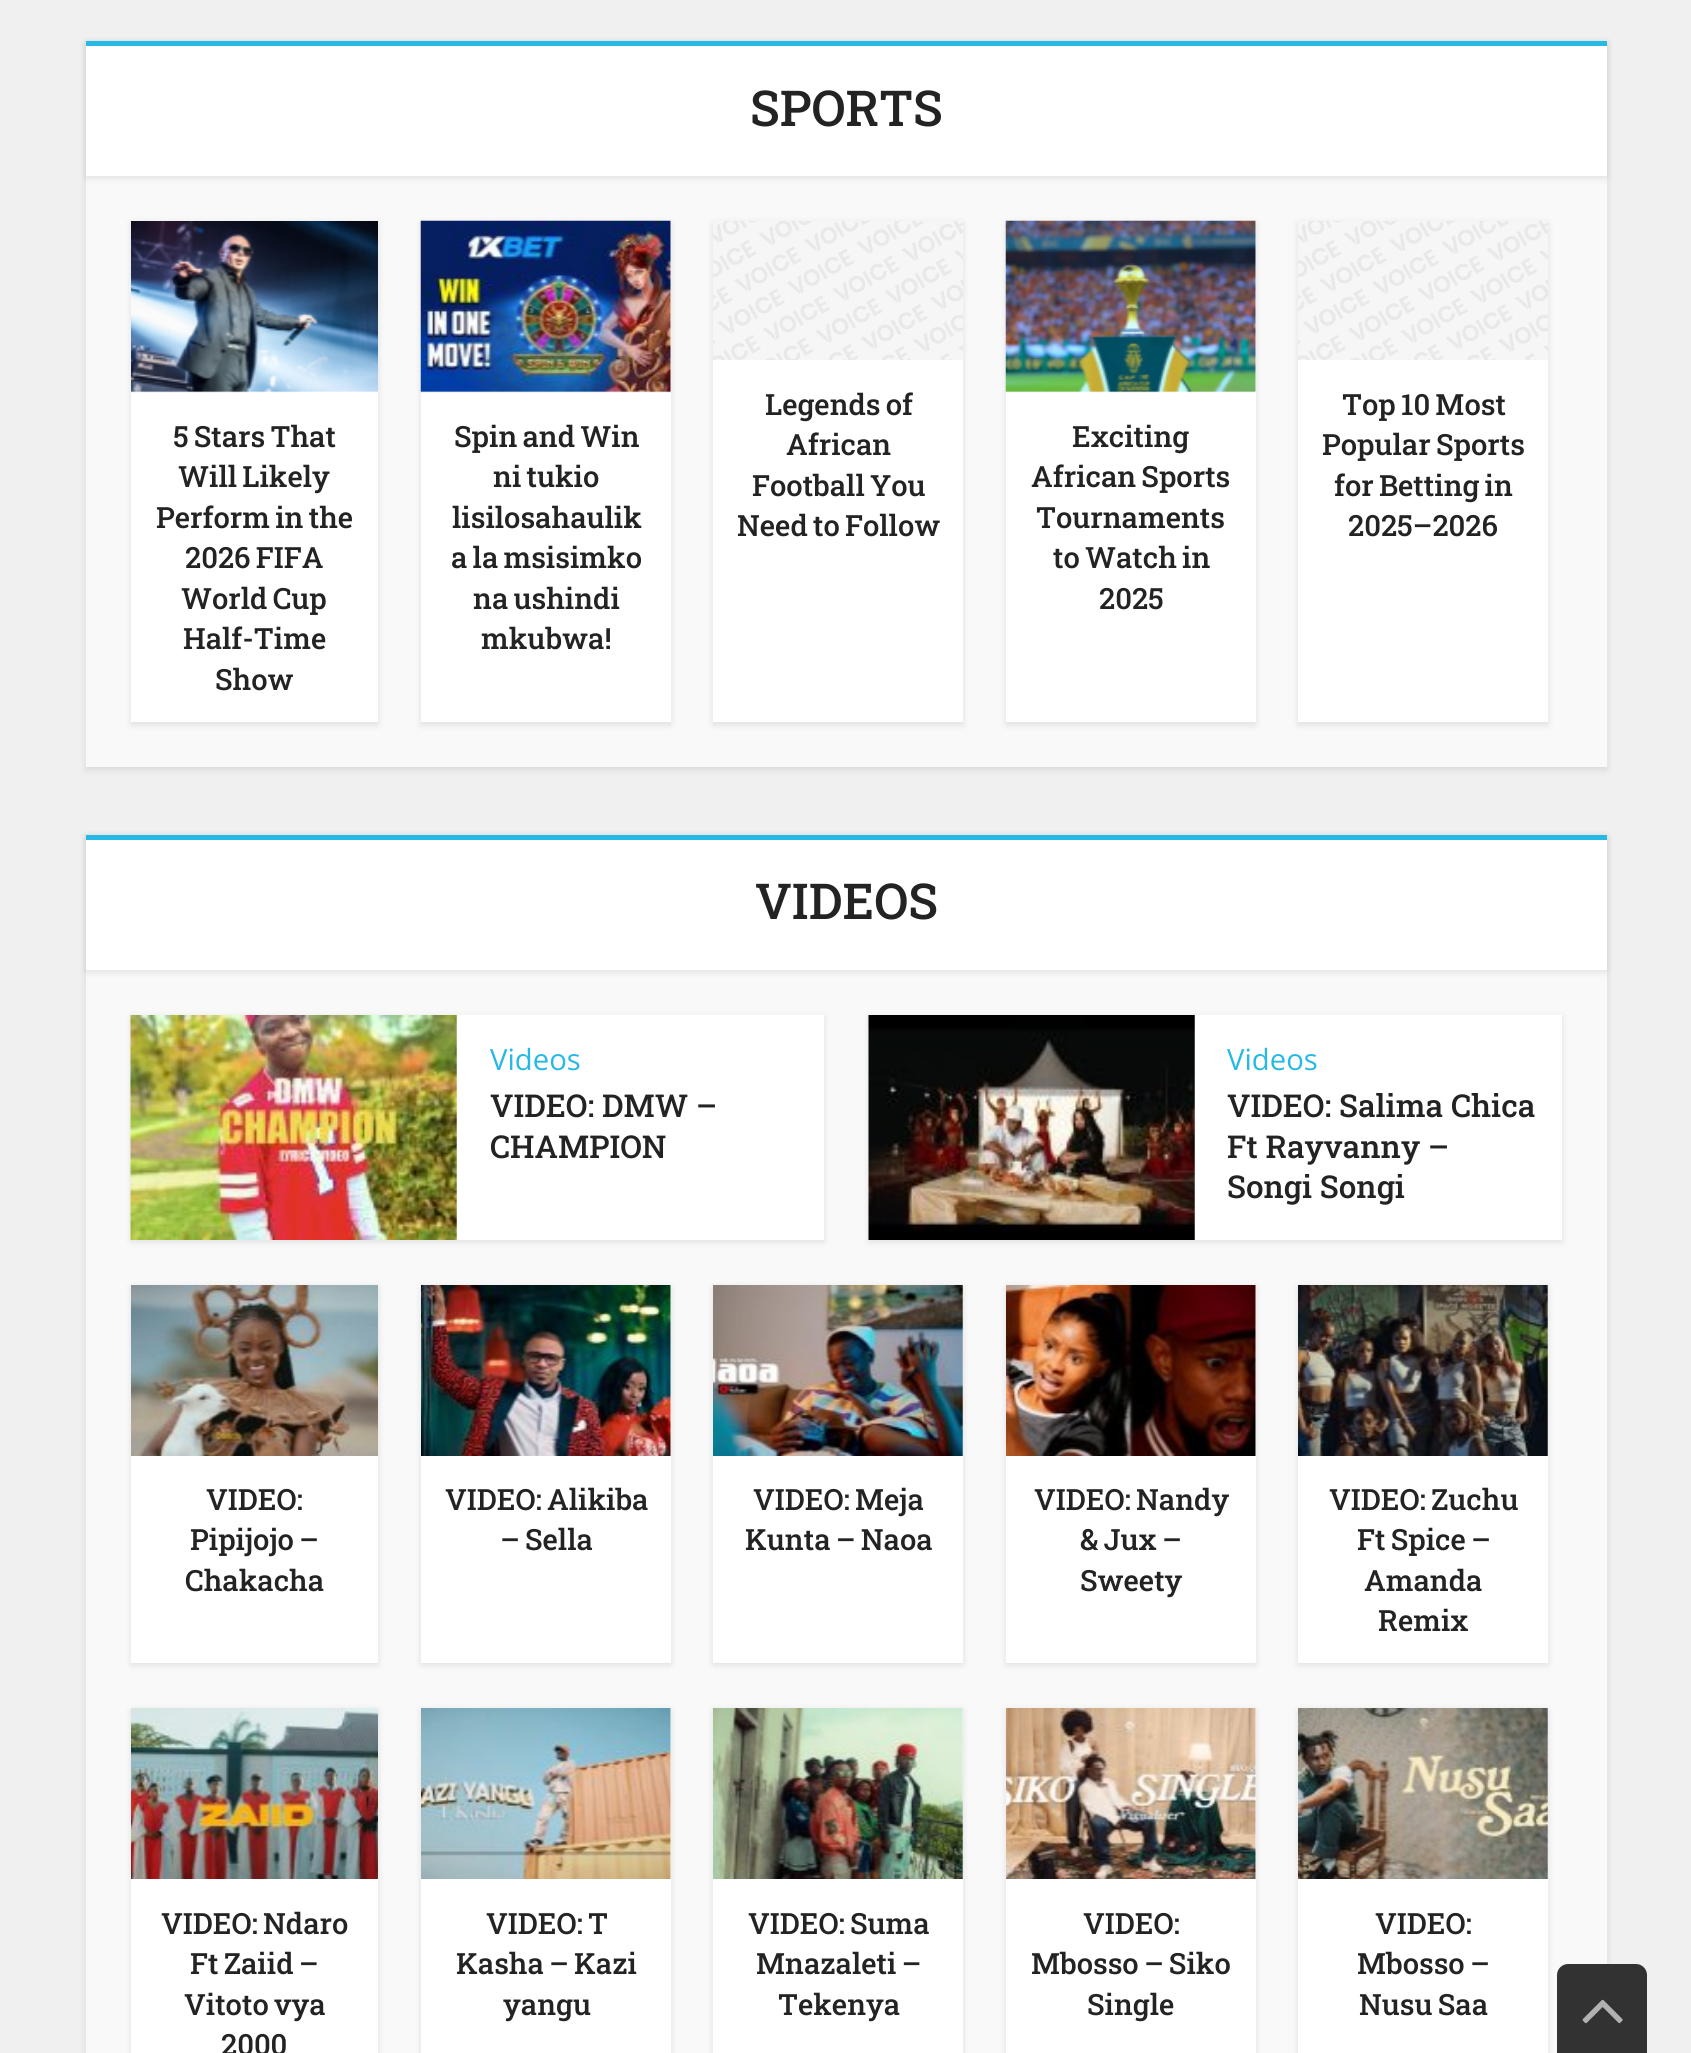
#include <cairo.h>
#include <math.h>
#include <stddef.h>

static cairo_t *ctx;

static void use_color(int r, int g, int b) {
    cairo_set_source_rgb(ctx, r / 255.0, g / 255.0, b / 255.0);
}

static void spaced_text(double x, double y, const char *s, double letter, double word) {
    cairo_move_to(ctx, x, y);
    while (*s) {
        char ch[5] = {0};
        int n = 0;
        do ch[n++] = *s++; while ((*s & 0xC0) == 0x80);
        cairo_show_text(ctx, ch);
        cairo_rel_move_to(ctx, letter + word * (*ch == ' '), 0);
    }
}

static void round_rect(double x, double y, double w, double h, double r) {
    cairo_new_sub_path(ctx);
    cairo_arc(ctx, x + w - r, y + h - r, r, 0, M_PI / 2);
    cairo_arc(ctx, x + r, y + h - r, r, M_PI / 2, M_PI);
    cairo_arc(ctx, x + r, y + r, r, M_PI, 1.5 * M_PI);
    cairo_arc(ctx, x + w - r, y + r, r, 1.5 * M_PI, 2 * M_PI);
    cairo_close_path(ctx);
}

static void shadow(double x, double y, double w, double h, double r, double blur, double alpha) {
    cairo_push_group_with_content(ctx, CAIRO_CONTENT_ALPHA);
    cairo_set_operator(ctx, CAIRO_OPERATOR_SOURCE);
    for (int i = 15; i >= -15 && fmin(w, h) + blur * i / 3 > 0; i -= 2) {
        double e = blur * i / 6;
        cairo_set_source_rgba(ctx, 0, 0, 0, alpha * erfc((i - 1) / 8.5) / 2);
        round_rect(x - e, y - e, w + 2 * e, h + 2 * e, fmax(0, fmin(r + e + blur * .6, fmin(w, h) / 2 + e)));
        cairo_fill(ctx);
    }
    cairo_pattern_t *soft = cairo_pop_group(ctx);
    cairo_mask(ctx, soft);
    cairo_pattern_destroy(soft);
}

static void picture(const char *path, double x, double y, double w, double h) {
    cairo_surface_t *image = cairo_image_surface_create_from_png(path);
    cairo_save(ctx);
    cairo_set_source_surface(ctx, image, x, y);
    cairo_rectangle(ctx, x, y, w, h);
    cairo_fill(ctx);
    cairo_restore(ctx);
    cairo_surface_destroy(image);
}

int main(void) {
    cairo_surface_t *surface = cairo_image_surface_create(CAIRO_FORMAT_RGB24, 1691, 2053);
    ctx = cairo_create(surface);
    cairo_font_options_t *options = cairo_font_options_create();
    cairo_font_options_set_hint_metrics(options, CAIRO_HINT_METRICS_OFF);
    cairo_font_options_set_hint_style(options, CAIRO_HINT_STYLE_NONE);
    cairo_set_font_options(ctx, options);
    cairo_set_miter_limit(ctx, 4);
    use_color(240, 240, 240);
    cairo_paint(ctx);
    use_color(0, 0, 0);
    shadow(86, 43, 1521, 727, 0, 3.5, 0.1);
    use_color(249, 249, 249);
    cairo_rectangle(ctx, 86, 176, 1521, 591);
    cairo_fill(ctx);
    use_color(0, 0, 0);
    shadow(86, 43, 1521, 135, 0, 3.5, 0.1);
    use_color(255, 255, 255);
    cairo_rectangle(ctx, 86, 46, 1521, 130);
    cairo_fill(ctx);
    use_color(39, 185, 229);
    cairo_rectangle(ctx, 86, 41, 1521, 5);
    cairo_fill(ctx);
    cairo_select_font_face(ctx, "Roboto Slab Medium", CAIRO_FONT_SLANT_NORMAL, CAIRO_FONT_WEIGHT_NORMAL);
    cairo_set_font_size(ctx, 49.5);
    use_color(35, 35, 35);
    cairo_move_to(ctx, 750, 126);
    cairo_show_text(ctx, "SPORTS");
    use_color(0, 0, 0);
    shadow(131, 223, 247, 502, 0, 3.5, 0.1);
    use_color(255, 255, 255);
    cairo_rectangle(ctx, 131, 391, 247, 331);
    cairo_fill(ctx);
    picture("img1.png", 131, 221, 247, 172);
    cairo_set_font_size(ctx, 29.25);
    use_color(35, 35, 35);
    spaced_text(173, 447, "5 Stars That", 0, -2);
    spaced_text(178, 487, "Will Likely", 0, -2);
    spaced_text(156, 528, "Perform in the", 0, -2);
    spaced_text(185, 568, "2026 FIFA", 0, -2);
    spaced_text(181, 609, "World Cup", 0, -2);
    cairo_move_to(ctx, 183, 649);
    cairo_show_text(ctx, "Half-Time");
    cairo_move_to(ctx, 215, 690);
    cairo_show_text(ctx, "Show");
    use_color(0, 0, 0);
    shadow(421, 223, 250, 502, 0, 3.5, 0.1);
    use_color(255, 255, 255);
    cairo_rectangle(ctx, 421, 221, 250, 501);
    cairo_fill(ctx);
    picture("img2.png", 420, 220, 251, 173);
    use_color(35, 35, 35);
    spaced_text(454, 447, "Spin and Win", 0, -2);
    spaced_text(493, 487, "ni tukio", 0, -2);
    cairo_move_to(ctx, 452, 528);
    cairo_show_text(ctx, "lisilosahaulik");
    spaced_text(451, 568, "a la msisimko", 0, -2);
    spaced_text(473, 609, "na ushindi", 0, -2);
    cairo_move_to(ctx, 481, 649);
    cairo_show_text(ctx, "mkubwa!");
    use_color(0, 0, 0);
    shadow(713, 223, 250, 502, 0, 3.5, 0.1);
    use_color(255, 255, 255);
    cairo_rectangle(ctx, 713, 360, 250, 362);
    cairo_fill(ctx);
    picture("img3.png", 713, 221, 250, 139);
    use_color(35, 35, 35);
    spaced_text(765, 415, "Legends of", 0, -2);
    cairo_move_to(ctx, 786, 455);
    cairo_show_text(ctx, "African");
    spaced_text(752, 496, "Football You", 0, -2);
    spaced_text(737, 536, "Need to Follow", 0, -2);
    use_color(0, 0, 0);
    shadow(1006, 223, 250, 502, 0, 3.5, 0.1);
    use_color(255, 255, 255);
    cairo_rectangle(ctx, 1006, 221, 250, 501);
    cairo_fill(ctx);
    picture("img4.png", 1005, 220, 251, 173);
    use_color(35, 35, 35);
    cairo_move_to(ctx, 1072, 447);
    cairo_show_text(ctx, "Exciting");
    spaced_text(1031, 487, "African Sports", 0, -2);
    cairo_move_to(ctx, 1036, 528);
    cairo_show_text(ctx, "Tournaments");
    spaced_text(1053, 568, "to Watch in", 0, -2);
    cairo_move_to(ctx, 1099, 609);
    cairo_show_text(ctx, "2025");
    use_color(0, 0, 0);
    shadow(1298, 223, 250, 502, 0, 3.5, 0.1);
    use_color(255, 255, 255);
    cairo_rectangle(ctx, 1298, 360, 250, 362);
    cairo_fill(ctx);
    picture("img5.png", 1298, 221, 250, 139);
    use_color(35, 35, 35);
    spaced_text(1342, 415, "Top 10 Most", 0, -2);
    spaced_text(1322, 455, "Popular Sports", 0, -2);
    spaced_text(1334, 496, "for Betting in", 0, -2);
    cairo_move_to(ctx, 1348, 536);
    cairo_show_text(ctx, "2025–2026");
    use_color(0, 0, 0);
    shadow(86, 837, 1521, 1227, 0, 3.5, 0.1);
    use_color(249, 249, 249);
    cairo_rectangle(ctx, 86, 970, 1521, 1083);
    cairo_fill(ctx);
    use_color(0, 0, 0);
    shadow(86, 837, 1521, 135, 0, 3.5, 0.1);
    use_color(255, 255, 255);
    cairo_rectangle(ctx, 86, 840, 1521, 130);
    cairo_fill(ctx);
    use_color(39, 185, 229);
    cairo_rectangle(ctx, 86, 835, 1521, 5);
    cairo_fill(ctx);
    cairo_set_font_size(ctx, 49.5);
    use_color(35, 35, 35);
    cairo_move_to(ctx, 755, 919);
    cairo_show_text(ctx, "VIDEOS");
    use_color(0, 0, 0);
    shadow(131, 1017, 693, 225, 0, 3.5, 0.1);
    use_color(255, 255, 255);
    cairo_rectangle(ctx, 456, 1015, 368, 225);
    cairo_fill(ctx);
    picture("img6.png", 130, 1015, 327, 225);
    cairo_select_font_face(ctx, "Open Sans", CAIRO_FONT_SLANT_NORMAL, CAIRO_FONT_WEIGHT_NORMAL);
    cairo_set_font_size(ctx, 29.25);
    use_color(39, 185, 229);
    cairo_move_to(ctx, 490, 1070);
    cairo_show_text(ctx, "Videos");
    cairo_select_font_face(ctx, "Roboto Slab Medium", CAIRO_FONT_SLANT_NORMAL, CAIRO_FONT_WEIGHT_NORMAL);
    cairo_set_font_size(ctx, 31.5);
    use_color(35, 35, 35);
    cairo_move_to(ctx, 490, 1117);
    cairo_show_text(ctx, "VIDEO: DMW –");
    cairo_move_to(ctx, 490, 1158);
    cairo_show_text(ctx, "CHAMPION");
    use_color(0, 0, 0);
    shadow(869, 1017, 693, 225, 0, 3.5, 0.1);
    use_color(255, 255, 255);
    cairo_rectangle(ctx, 1194, 1015, 368, 225);
    cairo_fill(ctx);
    picture("img7.png", 868, 1015, 327, 225);
    cairo_select_font_face(ctx, "Open Sans", CAIRO_FONT_SLANT_NORMAL, CAIRO_FONT_WEIGHT_NORMAL);
    cairo_set_font_size(ctx, 29.25);
    use_color(39, 185, 229);
    cairo_move_to(ctx, 1227, 1070);
    cairo_show_text(ctx, "Videos");
    cairo_select_font_face(ctx, "Roboto Slab Medium", CAIRO_FONT_SLANT_NORMAL, CAIRO_FONT_WEIGHT_NORMAL);
    cairo_set_font_size(ctx, 31.5);
    use_color(35, 35, 35);
    cairo_move_to(ctx, 1227, 1117);
    cairo_show_text(ctx, "VIDEO: Salima Chica");
    cairo_move_to(ctx, 1227, 1158);
    cairo_show_text(ctx, "Ft Rayvanny –");
    cairo_move_to(ctx, 1227, 1198);
    cairo_show_text(ctx, "Songi Songi");
    use_color(0, 0, 0);
    shadow(131, 1287, 247, 378, 0, 3.5, 0.1);
    use_color(255, 255, 255);
    cairo_rectangle(ctx, 131, 1456, 247, 207);
    cairo_fill(ctx);
    picture("img8.png", 131, 1285, 247, 171);
    cairo_set_font_size(ctx, 29.25);
    use_color(35, 35, 35);
    cairo_move_to(ctx, 206, 1510);
    cairo_show_text(ctx, "VIDEO:");
    spaced_text(190, 1550, "Pipijojo –", 0, -2);
    cairo_move_to(ctx, 185, 1591);
    cairo_show_text(ctx, "Chakacha");
    use_color(0, 0, 0);
    shadow(421, 1287, 250, 378, 0, 3.5, 0.1);
    use_color(255, 255, 255);
    cairo_rectangle(ctx, 421, 1285, 250, 378);
    cairo_fill(ctx);
    picture("img9.png", 421, 1285, 250, 171);
    use_color(35, 35, 35);
    spaced_text(445, 1510, "VIDEO: Alikiba", 0, -2);
    spaced_text(500, 1550, "– Sella", 0, -2);
    use_color(0, 0, 0);
    shadow(713, 1287, 250, 378, 0, 3.5, 0.1);
    use_color(255, 255, 255);
    cairo_rectangle(ctx, 713, 1285, 250, 378);
    cairo_fill(ctx);
    picture("img10.png", 713, 1285, 250, 171);
    use_color(35, 35, 35);
    spaced_text(753, 1510, "VIDEO: Meja", 0, -2);
    spaced_text(745, 1550, "Kunta – Naoa", 0, -2);
    use_color(0, 0, 0);
    shadow(1006, 1287, 250, 378, 0, 3.5, 0.1);
    use_color(255, 255, 255);
    cairo_rectangle(ctx, 1006, 1285, 250, 378);
    cairo_fill(ctx);
    picture("img11.png", 1006, 1285, 250, 171);
    use_color(35, 35, 35);
    spaced_text(1034, 1510, "VIDEO: Nandy", 0, -2);
    spaced_text(1080, 1550, "& Jux –", 0, -2);
    cairo_move_to(ctx, 1080, 1591);
    cairo_show_text(ctx, "Sweety");
    use_color(0, 0, 0);
    shadow(1298, 1287, 250, 378, 0, 3.5, 0.1);
    use_color(255, 255, 255);
    cairo_rectangle(ctx, 1298, 1285, 250, 378);
    cairo_fill(ctx);
    picture("img12.png", 1298, 1285, 250, 171);
    use_color(35, 35, 35);
    spaced_text(1329, 1510, "VIDEO: Zuchu", 0, -2);
    spaced_text(1357, 1550, "Ft Spice –", 0, -2);
    cairo_move_to(ctx, 1364, 1591);
    cairo_show_text(ctx, "Amanda");
    cairo_move_to(ctx, 1378, 1631);
    cairo_show_text(ctx, "Remix");
    use_color(0, 0, 0);
    shadow(131, 1710, 247, 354, 0, 3.5, 0.1);
    use_color(255, 255, 255);
    cairo_rectangle(ctx, 131, 1879, 247, 174);
    cairo_fill(ctx);
    picture("img13.png", 131, 1708, 247, 171);
    use_color(35, 35, 35);
    spaced_text(161, 1934, "VIDEO: Ndaro", 0, -2);
    spaced_text(190, 1974, "Ft Zaiid –", 0, -2);
    spaced_text(184, 2015, "Vitoto vya", 0, -2);
    cairo_move_to(ctx, 221, 2055);
    cairo_show_text(ctx, "2000");
    use_color(0, 0, 0);
    shadow(421, 1710, 250, 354, 0, 3.5, 0.1);
    use_color(255, 255, 255);
    cairo_rectangle(ctx, 421, 1708, 250, 345);
    cairo_fill(ctx);
    picture("img14.png", 421, 1708, 250, 171);
    use_color(35, 35, 35);
    spaced_text(486, 1934, "VIDEO: T", 0, -2);
    spaced_text(456, 1974, "Kasha – Kazi", 0, -2);
    cairo_move_to(ctx, 503, 2015);
    cairo_show_text(ctx, "yangu");
    use_color(0, 0, 0);
    shadow(713, 1710, 250, 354, 0, 3.5, 0.1);
    use_color(255, 255, 255);
    cairo_rectangle(ctx, 713, 1708, 250, 345);
    cairo_fill(ctx);
    picture("img15.png", 713, 1708, 250, 171);
    use_color(35, 35, 35);
    spaced_text(748, 1934, "VIDEO: Suma", 0, -2);
    spaced_text(756, 1974, "Mnazaleti –", 0, -2);
    cairo_move_to(ctx, 778, 2015);
    cairo_show_text(ctx, "Tekenya");
    use_color(0, 0, 0);
    shadow(1006, 1710, 250, 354, 0, 3.5, 0.1);
    use_color(255, 255, 255);
    cairo_rectangle(ctx, 1006, 1708, 250, 345);
    cairo_fill(ctx);
    picture("img16.png", 1006, 1708, 250, 171);
    use_color(35, 35, 35);
    cairo_move_to(ctx, 1083, 1934);
    cairo_show_text(ctx, "VIDEO:");
    spaced_text(1031, 1974, "Mbosso – Siko", 0, -2);
    cairo_move_to(ctx, 1087, 2015);
    cairo_show_text(ctx, "Single");
    use_color(0, 0, 0);
    shadow(1298, 1710, 250, 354, 0, 3.5, 0.1);
    use_color(255, 255, 255);
    cairo_rectangle(ctx, 1298, 1708, 250, 345);
    cairo_fill(ctx);
    picture("img17.png", 1298, 1708, 250, 171);
    use_color(35, 35, 35);
    cairo_move_to(ctx, 1375, 1934);
    cairo_show_text(ctx, "VIDEO:");
    spaced_text(1357, 1974, "Mbosso –", 0, -2);
    spaced_text(1359, 2015, "Nusu Saa", 0, -2);
    use_color(50, 50, 50);
    cairo_new_path(ctx);
    cairo_move_to(ctx, 1568, 1964);
    cairo_line_to(ctx, 1636, 1964);
    cairo_curve_to(ctx, 1642, 1964, 1647, 1969, 1647, 1975);
    cairo_line_to(ctx, 1647, 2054);
    cairo_line_to(ctx, 1557, 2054);
    cairo_line_to(ctx, 1557, 1975);
    cairo_curve_to(ctx, 1557, 1969, 1562, 1964, 1568, 1964);
    cairo_close_path(ctx);
    cairo_fill(ctx);
    picture("img18.png", 1582, 1999, 41, 25);
    cairo_surface_write_to_png(surface, "result.png");
    cairo_font_options_destroy(options);
    cairo_destroy(ctx);
    cairo_surface_destroy(surface);
    return 0;
}
